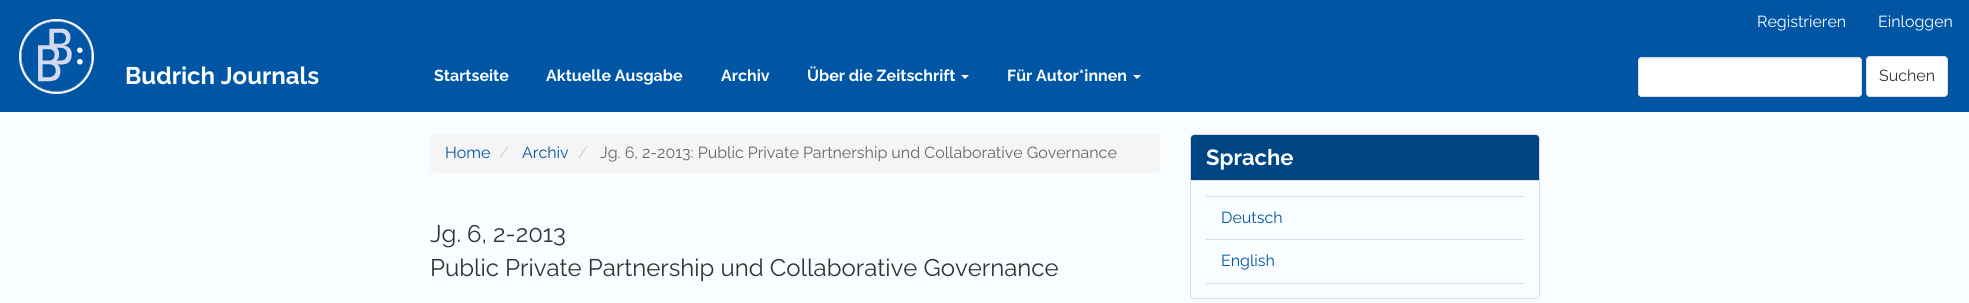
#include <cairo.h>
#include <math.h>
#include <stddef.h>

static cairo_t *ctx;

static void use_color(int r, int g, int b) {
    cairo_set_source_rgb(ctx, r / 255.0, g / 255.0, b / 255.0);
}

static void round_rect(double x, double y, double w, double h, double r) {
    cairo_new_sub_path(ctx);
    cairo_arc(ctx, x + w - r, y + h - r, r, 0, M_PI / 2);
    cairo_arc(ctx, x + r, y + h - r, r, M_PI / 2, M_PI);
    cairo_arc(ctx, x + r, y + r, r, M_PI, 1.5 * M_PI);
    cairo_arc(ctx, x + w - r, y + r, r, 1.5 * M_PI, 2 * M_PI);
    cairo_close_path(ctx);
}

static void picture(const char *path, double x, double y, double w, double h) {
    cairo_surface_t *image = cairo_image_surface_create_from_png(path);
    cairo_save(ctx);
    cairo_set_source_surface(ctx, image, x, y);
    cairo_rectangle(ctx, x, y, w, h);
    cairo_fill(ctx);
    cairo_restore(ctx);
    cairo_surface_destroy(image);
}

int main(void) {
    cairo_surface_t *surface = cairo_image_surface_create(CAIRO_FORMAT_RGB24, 1969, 303);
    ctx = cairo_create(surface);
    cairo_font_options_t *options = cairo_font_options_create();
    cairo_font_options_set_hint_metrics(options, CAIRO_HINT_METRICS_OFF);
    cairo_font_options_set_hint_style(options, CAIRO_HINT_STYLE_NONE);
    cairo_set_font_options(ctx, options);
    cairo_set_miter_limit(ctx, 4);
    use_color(250, 253, 255);
    cairo_paint(ctx);
    use_color(0, 86, 164);
    cairo_rectangle(ctx, 0, 0, 1969, 112);
    cairo_fill(ctx);
    cairo_select_font_face(ctx, "Raleway", CAIRO_FONT_SLANT_NORMAL, CAIRO_FONT_WEIGHT_NORMAL);
    cairo_set_font_size(ctx, 16);
    use_color(250, 253, 255);
    cairo_move_to(ctx, 1757, 27);
    cairo_show_text(ctx, "Registrieren");
    cairo_move_to(ctx, 1878, 27);
    cairo_show_text(ctx, "Einloggen");
    cairo_new_path(ctx);
    cairo_arc(ctx, 56.5, 56.5, 36.5, 0, 2 * M_PI);
    use_color(255, 255, 255);
    cairo_stroke(ctx);
    picture("img1.png", 21, 21, 71, 71);
    cairo_select_font_face(ctx, "Raleway", CAIRO_FONT_SLANT_NORMAL, CAIRO_FONT_WEIGHT_BOLD);
    cairo_set_font_size(ctx, 24);
    use_color(250, 253, 255);
    cairo_move_to(ctx, 125, 84);
    cairo_show_text(ctx, "Budrich Journals");
    cairo_set_font_size(ctx, 16);
    cairo_move_to(ctx, 434, 81);
    cairo_show_text(ctx, "Startseite");
    cairo_move_to(ctx, 546, 81);
    cairo_show_text(ctx, "Aktuelle Ausgabe");
    cairo_move_to(ctx, 721, 81);
    cairo_show_text(ctx, "Archiv");
    cairo_move_to(ctx, 807, 81);
    cairo_show_text(ctx, "Über die Zeitschrift");
    cairo_new_path(ctx);
    cairo_move_to(ctx, 961, 75);
    cairo_line_to(ctx, 969, 75);
    cairo_line_to(ctx, 965, 79);
    cairo_close_path(ctx);
    cairo_fill(ctx);
    cairo_move_to(ctx, 1007, 81);
    cairo_show_text(ctx, "Für Autor*innen");
    cairo_new_path(ctx);
    cairo_move_to(ctx, 1133, 75);
    cairo_line_to(ctx, 1141, 75);
    cairo_line_to(ctx, 1137, 79);
    cairo_close_path(ctx);
    cairo_fill(ctx);
    use_color(255, 255, 255);
    round_rect(1638, 57, 224, 40, 4);
    cairo_fill(ctx);
    use_color(236, 236, 236);
    cairo_new_path(ctx);
    cairo_move_to(ctx, 1642, 59);
    cairo_line_to(ctx, 1858, 59);
    cairo_curve_to(ctx, 1860, 59, 1861, 60, 1861, 62);
    cairo_line_to(ctx, 1861, 61);
    cairo_curve_to(ctx, 1861, 59, 1860, 58, 1858, 58);
    cairo_line_to(ctx, 1642, 58);
    cairo_curve_to(ctx, 1640, 58, 1639, 59, 1639, 61);
    cairo_line_to(ctx, 1639, 62);
    cairo_curve_to(ctx, 1639, 60, 1640, 59, 1642, 59);
    cairo_close_path(ctx);
    cairo_fill(ctx);
    round_rect(1638.5, 57.5, 223, 39, 3.5);
    use_color(221, 221, 221);
    cairo_set_line_width(ctx, 1);
    cairo_stroke(ctx);
    use_color(255, 255, 255);
    round_rect(1866.5, 56.5, 81, 40, 3.5);
    cairo_fill_preserve(ctx);
    use_color(221, 221, 221);
    cairo_stroke(ctx);
    cairo_select_font_face(ctx, "Raleway", CAIRO_FONT_SLANT_NORMAL, CAIRO_FONT_WEIGHT_NORMAL);
    use_color(51, 51, 51);
    cairo_move_to(ctx, 1879, 81);
    cairo_show_text(ctx, "Suchen");
    use_color(245, 245, 245);
    round_rect(430, 134, 730, 39, 4);
    cairo_fill(ctx);
    use_color(0, 86, 164);
    cairo_move_to(ctx, 445, 158);
    cairo_show_text(ctx, "Home");
    use_color(204, 204, 204);
    cairo_move_to(ctx, 499, 158);
    cairo_show_text(ctx, "/");
    use_color(0, 86, 164);
    cairo_move_to(ctx, 522, 158);
    cairo_show_text(ctx, "Archiv");
    use_color(204, 204, 204);
    cairo_move_to(ctx, 578, 158);
    cairo_show_text(ctx, "/");
    use_color(102, 102, 102);
    cairo_move_to(ctx, 600, 158);
    cairo_show_text(ctx, "Jg. 6, 2-2013: Public Private Partnership und Collaborative Governance");
    cairo_set_font_size(ctx, 24);
    use_color(51, 51, 51);
    cairo_move_to(ctx, 430, 242);
    cairo_show_text(ctx, "Jg. 6, 2-2013");
    cairo_move_to(ctx, 430, 276);
    cairo_show_text(ctx, "Public Private Partnership und Collaborative Governance");
    round_rect(1190.5, 134.5, 349, 164, 3.5);
    use_color(221, 221, 221);
    cairo_stroke(ctx);
    use_color(0, 69, 131);
    cairo_new_path(ctx);
    cairo_move_to(ctx, 1194, 135);
    cairo_line_to(ctx, 1536, 135);
    cairo_curve_to(ctx, 1537.5, 135, 1539, 136.5, 1539, 138);
    cairo_line_to(ctx, 1539, 181);
    cairo_line_to(ctx, 1191, 181);
    cairo_line_to(ctx, 1191, 138);
    cairo_curve_to(ctx, 1191, 136.5, 1192.5, 135, 1194, 135);
    cairo_close_path(ctx);
    cairo_fill(ctx);
    use_color(221, 221, 221);
    cairo_rectangle(ctx, 1191, 180, 348, 1);
    cairo_fill(ctx);
    cairo_select_font_face(ctx, "Raleway", CAIRO_FONT_SLANT_NORMAL, CAIRO_FONT_WEIGHT_BOLD);
    cairo_set_font_size(ctx, 22);
    use_color(250, 253, 255);
    cairo_move_to(ctx, 1206, 165);
    cairo_show_text(ctx, "Sprache");
    use_color(221, 221, 221);
    cairo_rectangle(ctx, 1206, 196, 318, 1);
    cairo_fill(ctx);
    cairo_rectangle(ctx, 1206, 239, 318, 1);
    cairo_fill(ctx);
    cairo_select_font_face(ctx, "Raleway", CAIRO_FONT_SLANT_NORMAL, CAIRO_FONT_WEIGHT_NORMAL);
    cairo_set_font_size(ctx, 16);
    use_color(0, 86, 164);
    cairo_move_to(ctx, 1221, 223);
    cairo_show_text(ctx, "Deutsch");
    use_color(221, 221, 221);
    cairo_rectangle(ctx, 1206, 283, 318, 1);
    cairo_fill(ctx);
    use_color(0, 86, 164);
    cairo_move_to(ctx, 1221, 266);
    cairo_show_text(ctx, "English");
    cairo_surface_write_to_png(surface, "result.png");
    cairo_font_options_destroy(options);
    cairo_destroy(ctx);
    cairo_surface_destroy(surface);
    return 0;
}
